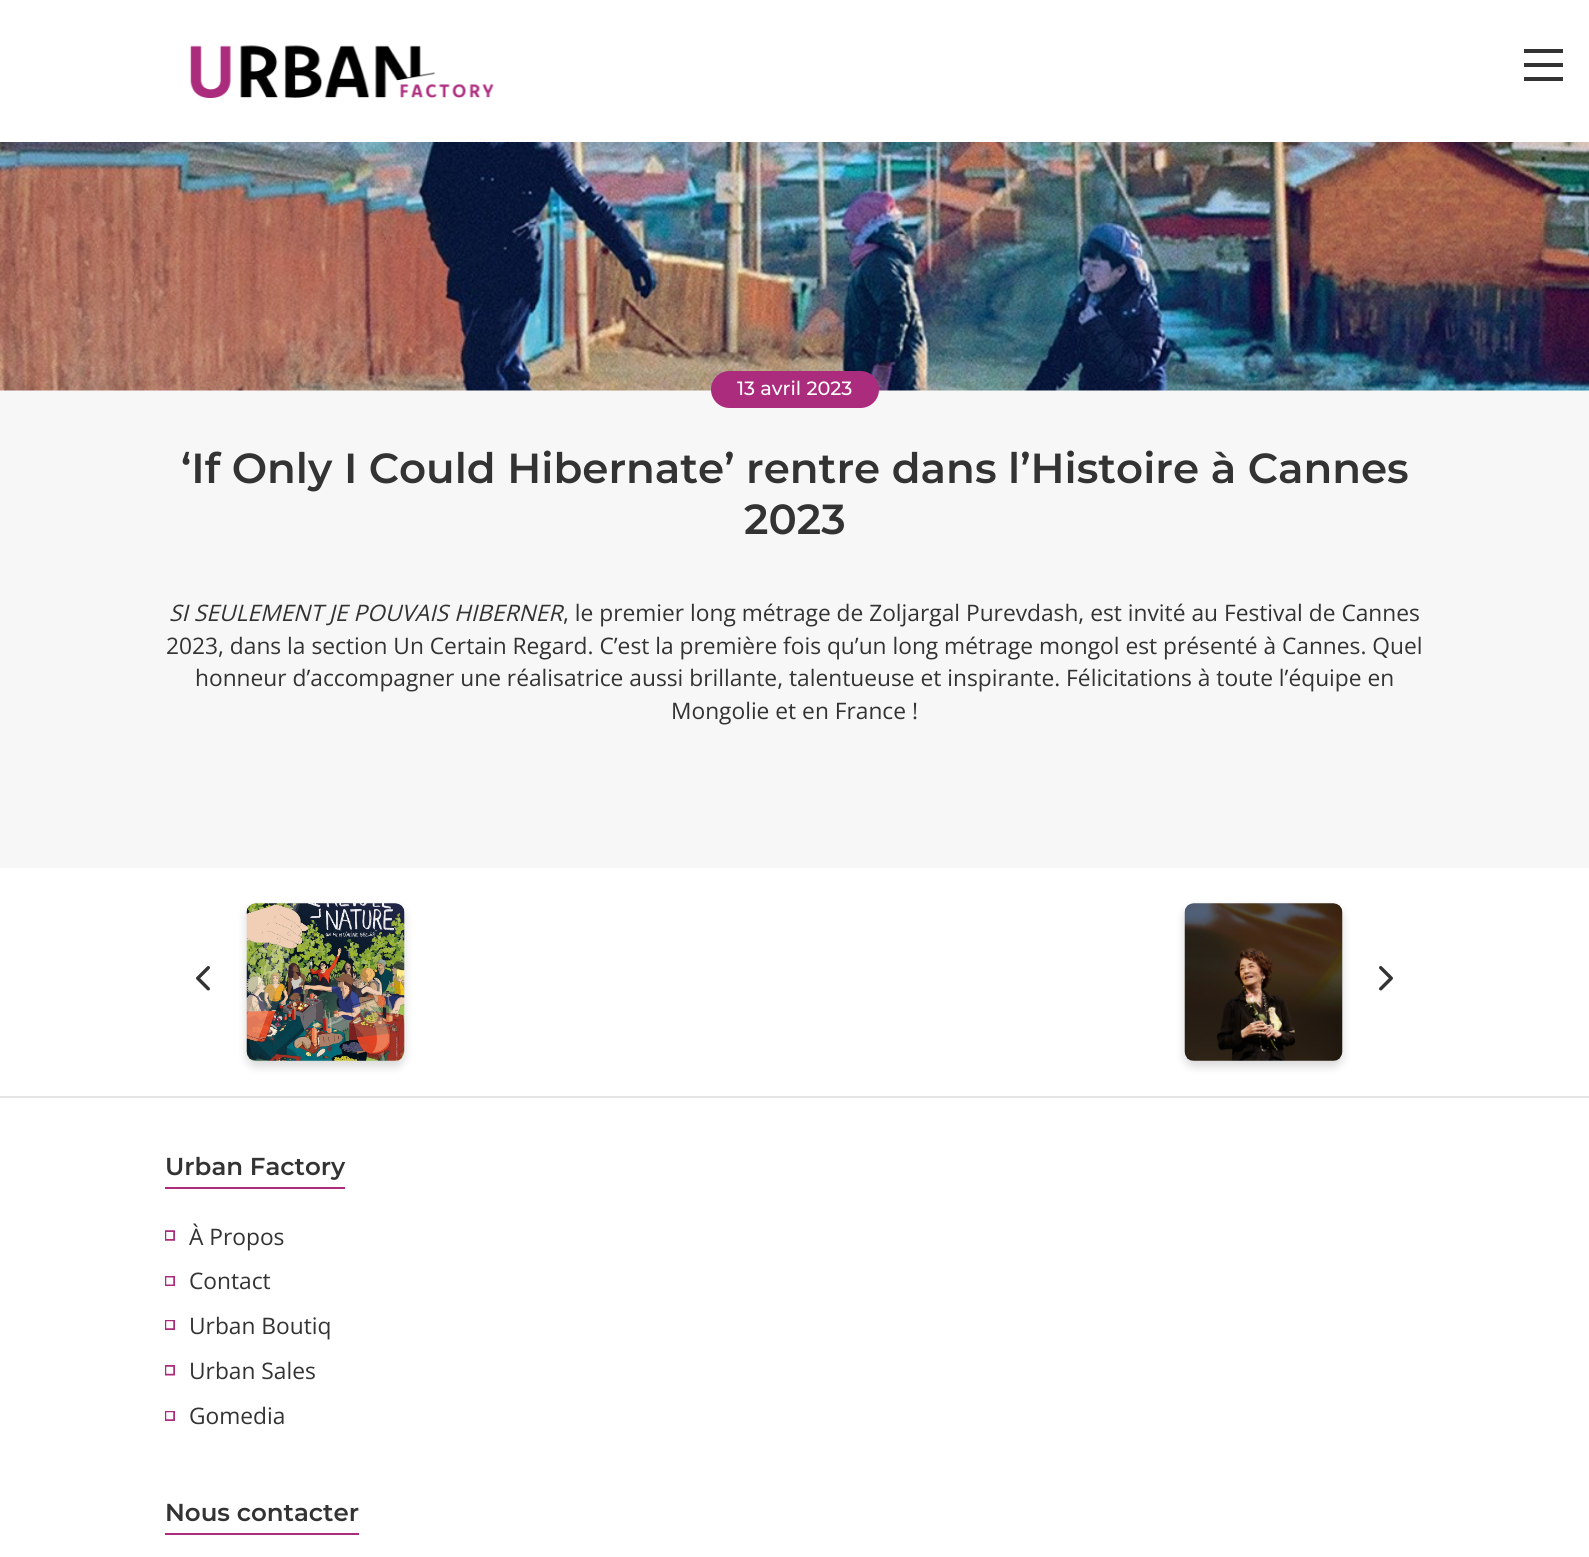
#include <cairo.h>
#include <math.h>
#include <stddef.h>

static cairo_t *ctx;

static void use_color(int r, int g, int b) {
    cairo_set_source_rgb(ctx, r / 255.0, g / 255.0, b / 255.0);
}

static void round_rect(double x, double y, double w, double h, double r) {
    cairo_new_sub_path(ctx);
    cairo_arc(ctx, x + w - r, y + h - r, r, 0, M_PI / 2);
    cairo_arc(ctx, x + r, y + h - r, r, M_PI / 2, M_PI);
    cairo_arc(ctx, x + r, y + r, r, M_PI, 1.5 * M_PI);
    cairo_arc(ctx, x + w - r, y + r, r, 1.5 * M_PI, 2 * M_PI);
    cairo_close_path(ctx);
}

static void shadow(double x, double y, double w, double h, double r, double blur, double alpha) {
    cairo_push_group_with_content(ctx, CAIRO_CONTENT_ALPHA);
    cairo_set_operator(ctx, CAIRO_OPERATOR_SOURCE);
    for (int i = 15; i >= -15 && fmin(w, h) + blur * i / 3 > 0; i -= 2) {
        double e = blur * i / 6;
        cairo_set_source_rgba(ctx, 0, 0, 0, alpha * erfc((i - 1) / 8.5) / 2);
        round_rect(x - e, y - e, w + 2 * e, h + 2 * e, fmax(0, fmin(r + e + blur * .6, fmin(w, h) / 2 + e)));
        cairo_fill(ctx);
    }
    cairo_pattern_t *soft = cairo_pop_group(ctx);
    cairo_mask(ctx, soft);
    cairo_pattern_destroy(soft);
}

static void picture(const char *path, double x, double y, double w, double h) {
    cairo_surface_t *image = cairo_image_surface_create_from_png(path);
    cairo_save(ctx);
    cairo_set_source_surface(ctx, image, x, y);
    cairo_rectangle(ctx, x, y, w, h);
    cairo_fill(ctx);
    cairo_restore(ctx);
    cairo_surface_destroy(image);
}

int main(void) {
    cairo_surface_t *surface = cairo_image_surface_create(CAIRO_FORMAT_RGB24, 1589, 1557);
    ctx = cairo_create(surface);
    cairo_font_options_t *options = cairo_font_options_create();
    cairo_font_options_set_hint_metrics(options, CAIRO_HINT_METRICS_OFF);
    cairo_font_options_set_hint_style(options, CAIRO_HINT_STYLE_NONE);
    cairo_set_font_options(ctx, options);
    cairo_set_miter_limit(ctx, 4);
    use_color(247, 247, 247);
    cairo_paint(ctx);
    use_color(255, 255, 255);
    cairo_rectangle(ctx, 0, 0, 1589, 142);
    cairo_fill(ctx);
    picture("img1.png", 190, 45, 304, 53);
    use_color(52, 51, 51);
    cairo_rectangle(ctx, 1524, 49, 39, 4);
    cairo_fill(ctx);
    cairo_rectangle(ctx, 1524, 63, 39, 4);
    cairo_fill(ctx);
    cairo_rectangle(ctx, 1524, 77, 39, 4);
    cairo_fill(ctx);
    picture("img2.png", 0, 142, 1589, 249);
    use_color(171, 43, 125);
    round_rect(711, 371, 168, 37, 18.5);
    cairo_fill(ctx);
    cairo_select_font_face(ctx, "Montserrat Medium", CAIRO_FONT_SLANT_NORMAL, CAIRO_FONT_WEIGHT_NORMAL);
    cairo_set_font_size(ctx, 19.25);
    use_color(255, 255, 255);
    cairo_move_to(ctx, 737, 395);
    cairo_show_text(ctx, "13 avril 2023");
    cairo_select_font_face(ctx, "Montserrat SemiBold", CAIRO_FONT_SLANT_NORMAL, CAIRO_FONT_WEIGHT_NORMAL);
    cairo_set_font_size(ctx, 42);
    use_color(52, 51, 51);
    cairo_move_to(ctx, 181, 483);
    cairo_show_text(ctx, "‘If Only I Could Hibernate’ rentre dans l’Histoire à Cannes");
    cairo_move_to(ctx, 744, 534);
    cairo_show_text(ctx, "2023");
    cairo_select_font_face(ctx, "Open Sans", CAIRO_FONT_SLANT_ITALIC, CAIRO_FONT_WEIGHT_NORMAL);
    cairo_set_font_size(ctx, 22.75);
    cairo_move_to(ctx, 169, 621);
    cairo_show_text(ctx, "SI SEULEMENT JE POUVAIS HIBERNER");
    cairo_select_font_face(ctx, "Open Sans", CAIRO_FONT_SLANT_NORMAL, CAIRO_FONT_WEIGHT_NORMAL);
    cairo_move_to(ctx, 563, 621);
    cairo_show_text(ctx, ", le premier long métrage de Zoljargal Purevdash, est invité au Festival de Cannes");
    cairo_move_to(ctx, 166, 654);
    cairo_show_text(ctx, "2023, dans la section Un Certain Regard. C’est la première fois qu’un long métrage mongol est présenté à Cannes. Quel");
    cairo_move_to(ctx, 195, 686);
    cairo_show_text(ctx, "honneur d’accompagner une réalisatrice aussi brillante, talentueuse et inspirante. Félicitations à toute l’équipe en");
    cairo_move_to(ctx, 671, 719);
    cairo_show_text(ctx, "Mongolie et en France !");
    use_color(255, 255, 255);
    cairo_rectangle(ctx, 0, 868, 1589, 228);
    cairo_fill(ctx);
    picture("img3.png", 196, 966, 14, 25);
    use_color(0, 0, 0);
    shadow(247, 908, 157, 158, 9, 5, 0.16);
    picture("img4.png", 246, 903, 159, 158);
    shadow(1185, 908, 157, 158, 9, 5, 0.16);
    picture("img5.png", 1184, 903, 159, 158);
    picture("img6.png", 1379, 966, 14, 25);
    use_color(255, 255, 255);
    cairo_rectangle(ctx, 0, 1098, 1589, 459);
    cairo_fill(ctx);
    use_color(229, 229, 229);
    cairo_rectangle(ctx, 0, 1096, 1589, 2);
    cairo_fill(ctx);
    cairo_select_font_face(ctx, "Montserrat SemiBold", CAIRO_FONT_SLANT_NORMAL, CAIRO_FONT_WEIGHT_NORMAL);
    cairo_set_font_size(ctx, 24.5);
    use_color(52, 51, 51);
    cairo_move_to(ctx, 165, 1175);
    cairo_show_text(ctx, "Urban Factory");
    use_color(171, 43, 125);
    cairo_rectangle(ctx, 165, 1187, 180, 2);
    cairo_fill(ctx);
    picture("img7.png", 165, 1230, 10, 11);
    cairo_select_font_face(ctx, "Open Sans", CAIRO_FONT_SLANT_NORMAL, CAIRO_FONT_WEIGHT_NORMAL);
    cairo_set_font_size(ctx, 22.75);
    use_color(52, 51, 51);
    cairo_move_to(ctx, 189, 1245);
    cairo_show_text(ctx, "À Propos");
    picture("img8.png", 165, 1276, 10, 10);
    cairo_move_to(ctx, 189, 1289);
    cairo_show_text(ctx, "Contact");
    picture("img9.png", 165, 1320, 10, 10);
    cairo_move_to(ctx, 189, 1334);
    cairo_show_text(ctx, "Urban Boutiq");
    picture("img10.png", 165, 1365, 10, 11);
    cairo_move_to(ctx, 189, 1379);
    cairo_show_text(ctx, "Urban Sales");
    picture("img9.png", 165, 1411, 10, 10);
    cairo_move_to(ctx, 189, 1424);
    cairo_show_text(ctx, "Gomedia");
    cairo_select_font_face(ctx, "Montserrat SemiBold", CAIRO_FONT_SLANT_NORMAL, CAIRO_FONT_WEIGHT_NORMAL);
    cairo_set_font_size(ctx, 24.5);
    cairo_move_to(ctx, 165, 1521);
    cairo_show_text(ctx, "Nous contacter");
    use_color(171, 43, 125);
    cairo_rectangle(ctx, 165, 1533, 194, 2);
    cairo_fill(ctx);
    cairo_surface_write_to_png(surface, "result.png");
    cairo_font_options_destroy(options);
    cairo_destroy(ctx);
    cairo_surface_destroy(surface);
    return 0;
}
